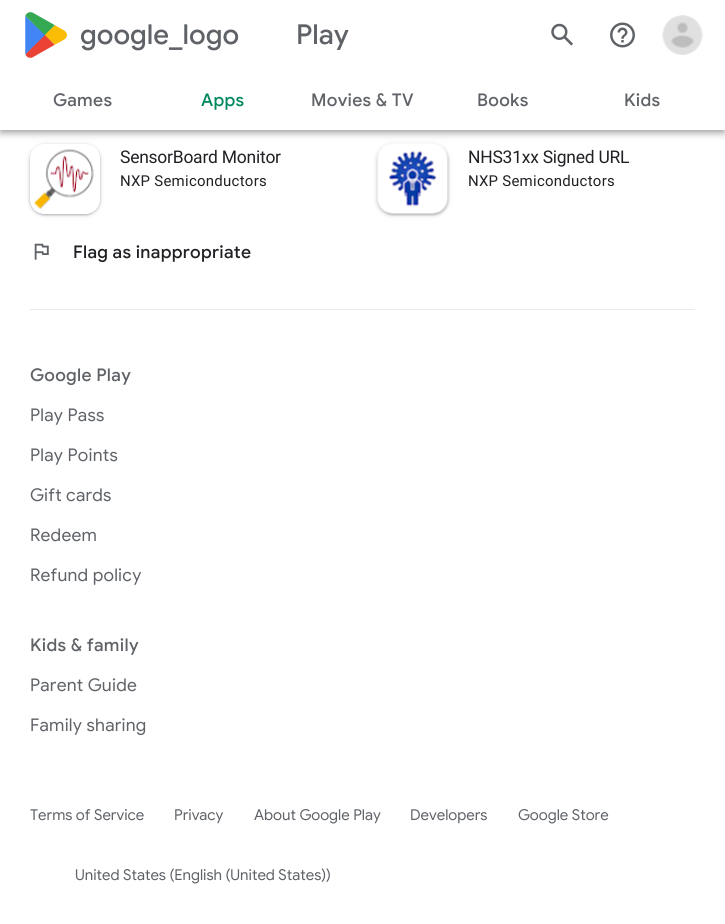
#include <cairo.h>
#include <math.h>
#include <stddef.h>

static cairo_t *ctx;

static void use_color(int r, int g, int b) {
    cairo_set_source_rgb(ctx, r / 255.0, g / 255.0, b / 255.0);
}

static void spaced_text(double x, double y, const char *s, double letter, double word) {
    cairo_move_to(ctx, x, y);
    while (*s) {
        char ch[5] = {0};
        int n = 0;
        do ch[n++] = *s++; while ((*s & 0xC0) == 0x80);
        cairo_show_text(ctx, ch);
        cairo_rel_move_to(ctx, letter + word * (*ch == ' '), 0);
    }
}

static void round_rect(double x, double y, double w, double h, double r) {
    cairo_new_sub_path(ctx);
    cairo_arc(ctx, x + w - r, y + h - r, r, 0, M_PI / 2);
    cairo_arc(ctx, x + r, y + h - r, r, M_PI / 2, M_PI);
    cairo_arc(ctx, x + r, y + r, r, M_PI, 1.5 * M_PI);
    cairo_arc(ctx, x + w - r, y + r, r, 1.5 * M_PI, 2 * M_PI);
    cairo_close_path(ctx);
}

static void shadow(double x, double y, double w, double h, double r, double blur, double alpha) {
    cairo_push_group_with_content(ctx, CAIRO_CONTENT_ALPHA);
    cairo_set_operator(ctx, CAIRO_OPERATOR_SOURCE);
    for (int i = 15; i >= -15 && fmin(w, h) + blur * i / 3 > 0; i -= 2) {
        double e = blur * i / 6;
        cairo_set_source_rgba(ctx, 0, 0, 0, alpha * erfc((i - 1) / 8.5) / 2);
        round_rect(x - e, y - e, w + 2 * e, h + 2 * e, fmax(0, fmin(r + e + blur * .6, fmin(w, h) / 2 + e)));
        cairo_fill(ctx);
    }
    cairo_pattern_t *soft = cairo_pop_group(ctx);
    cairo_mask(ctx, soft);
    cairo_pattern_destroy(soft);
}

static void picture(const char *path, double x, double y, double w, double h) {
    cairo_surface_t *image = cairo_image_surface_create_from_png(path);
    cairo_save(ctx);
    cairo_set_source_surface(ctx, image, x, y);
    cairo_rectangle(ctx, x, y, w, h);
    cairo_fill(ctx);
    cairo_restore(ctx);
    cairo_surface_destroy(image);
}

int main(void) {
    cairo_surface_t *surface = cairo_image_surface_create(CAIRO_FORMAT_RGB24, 725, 924);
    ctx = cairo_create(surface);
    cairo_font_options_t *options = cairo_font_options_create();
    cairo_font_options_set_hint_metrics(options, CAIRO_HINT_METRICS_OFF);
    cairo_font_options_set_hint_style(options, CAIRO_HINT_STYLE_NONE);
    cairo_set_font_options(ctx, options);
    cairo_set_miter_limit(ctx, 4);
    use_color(255, 255, 255);
    cairo_paint(ctx);
    use_color(0, 0, 0);
    shadow(1, 4, 723, 127, 0, 2.5, 0.2);
    cairo_save(ctx);
    cairo_set_fill_rule(ctx, CAIRO_FILL_RULE_EVEN_ODD);
    cairo_new_path(ctx);
    cairo_move_to(ctx, 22, 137);
    cairo_line_to(ctx, 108, 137);
    cairo_line_to(ctx, 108, 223);
    cairo_line_to(ctx, 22, 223);
    cairo_close_path(ctx);
    cairo_move_to(ctx, 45, 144);
    cairo_line_to(ctx, 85, 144);
    cairo_curve_to(ctx, 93.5, 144, 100, 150.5, 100, 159);
    cairo_line_to(ctx, 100, 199);
    cairo_curve_to(ctx, 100, 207.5, 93.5, 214, 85, 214);
    cairo_line_to(ctx, 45, 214);
    cairo_curve_to(ctx, 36.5, 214, 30, 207.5, 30, 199);
    cairo_line_to(ctx, 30, 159);
    cairo_curve_to(ctx, 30, 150.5, 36.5, 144, 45, 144);
    cairo_close_path(ctx);
    cairo_clip(ctx);
    use_color(60, 64, 67);
    shadow(29, 144, 72, 72, 16, 2, 0.15);
    cairo_restore(ctx);
    cairo_save(ctx);
    cairo_set_fill_rule(ctx, CAIRO_FILL_RULE_EVEN_ODD);
    cairo_new_path(ctx);
    cairo_move_to(ctx, 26, 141);
    cairo_line_to(ctx, 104, 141);
    cairo_line_to(ctx, 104, 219);
    cairo_line_to(ctx, 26, 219);
    cairo_close_path(ctx);
    cairo_move_to(ctx, 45, 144);
    cairo_line_to(ctx, 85, 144);
    cairo_curve_to(ctx, 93.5, 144, 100, 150.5, 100, 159);
    cairo_line_to(ctx, 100, 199);
    cairo_curve_to(ctx, 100, 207.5, 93.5, 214, 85, 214);
    cairo_line_to(ctx, 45, 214);
    cairo_curve_to(ctx, 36.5, 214, 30, 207.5, 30, 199);
    cairo_line_to(ctx, 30, 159);
    cairo_curve_to(ctx, 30, 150.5, 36.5, 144, 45, 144);
    cairo_close_path(ctx);
    cairo_clip(ctx);
    use_color(60, 64, 67);
    shadow(30, 145, 70, 70, 15, 1, 0.3);
    cairo_restore(ctx);
    picture("img5.png", 34, 149, 60, 61);
    use_color(60, 64, 67);
    shadow(376, 144, 73, 72, 16, 2, 0.15);
    shadow(378, 145, 70, 70, 15, 1, 0.3);
    picture("img6.png", 377, 143, 71, 71);
    use_color(0, 0, 0);
    shadow(0, 1, 725, 130, 0, 6, 0.12);
    shadow(0, 5, 725, 130, 0, 3, 0.14);
    use_color(255, 255, 255);
    cairo_rectangle(ctx, 0, 0, 725, 130);
    cairo_fill(ctx);
    picture("img1.png", 25, 12, 42, 46);
    cairo_select_font_face(ctx, "Google Sans Medium", CAIRO_FONT_SLANT_NORMAL, CAIRO_FONT_WEIGHT_NORMAL);
    cairo_set_font_size(ctx, 27.5);
    use_color(95, 99, 104);
    spaced_text(80, 44, "google_logo", 0, 69);
    spaced_text(296, 44, "Play", 0, 69);
    picture("img2.png", 551, 23, 22, 23);
    picture("img3.png", 610, 22, 25, 26);
    picture("img4.png", 662, 15, 41, 40);
    cairo_set_font_size(ctx, 17.5);
    spaced_text(53, 106, "Games", 0.3, 0);
    use_color(1, 135, 95);
    spaced_text(201, 106, "Apps", 0.3, 0);
    use_color(95, 99, 104);
    spaced_text(311, 106, "Movies & TV", 0.3, 0);
    spaced_text(477, 106, "Books", 0.3, 0);
    spaced_text(624, 106, "Kids", 0.3, 0);
    cairo_select_font_face(ctx, "Roboto", CAIRO_FONT_SLANT_NORMAL, CAIRO_FONT_WEIGHT_NORMAL);
    use_color(32, 33, 36);
    spaced_text(120, 163, "SensorBoard Monitor", -0.25, 0);
    cairo_set_font_size(ctx, 15);
    spaced_text(120, 186, "NXP Semiconductors", 0.25, 0);
    cairo_set_font_size(ctx, 17.5);
    spaced_text(468, 163, "NHS31xx Signed URL", -0.25, 0);
    cairo_set_font_size(ctx, 15);
    spaced_text(468, 186, "NXP Semiconductors", 0.25, 0);
    picture("img7.png", 34, 243, 15, 17);
    cairo_select_font_face(ctx, "Google Sans Medium", CAIRO_FONT_SLANT_NORMAL, CAIRO_FONT_WEIGHT_NORMAL);
    cairo_set_font_size(ctx, 17.5);
    spaced_text(73, 258, "Flag as inappropriate", 0.3, 0);
    use_color(232, 234, 237);
    cairo_rectangle(ctx, 30, 309, 665, 1);
    cairo_fill(ctx);
    use_color(95, 99, 104);
    spaced_text(30, 381, "Google Play", 0.3, 0);
    cairo_select_font_face(ctx, "Google Sans", CAIRO_FONT_SLANT_NORMAL, CAIRO_FONT_WEIGHT_NORMAL);
    spaced_text(30, 421, "Play Pass", 0.25, 0);
    spaced_text(30, 461, "Play Points", 0.25, 0);
    spaced_text(30, 501, "Gift cards", 0.25, 0);
    spaced_text(30, 541, "Redeem", 0.25, 0);
    spaced_text(30, 581, "Refund policy", 0.25, 0);
    cairo_select_font_face(ctx, "Google Sans Medium", CAIRO_FONT_SLANT_NORMAL, CAIRO_FONT_WEIGHT_NORMAL);
    spaced_text(30, 651, "Kids & family", 0.3, 0);
    cairo_select_font_face(ctx, "Google Sans", CAIRO_FONT_SLANT_NORMAL, CAIRO_FONT_WEIGHT_NORMAL);
    spaced_text(30, 691, "Parent Guide", 0.25, 0);
    spaced_text(30, 731, "Family sharing", 0.25, 0);
    cairo_set_font_size(ctx, 15);
    cairo_move_to(ctx, 30, 820);
    cairo_show_text(ctx, "Terms of Service");
    cairo_move_to(ctx, 174, 820);
    cairo_show_text(ctx, "Privacy");
    cairo_move_to(ctx, 254, 820);
    cairo_show_text(ctx, "About Google Play");
    cairo_move_to(ctx, 410, 820);
    cairo_show_text(ctx, "Developers");
    cairo_move_to(ctx, 518, 820);
    cairo_show_text(ctx, "Google Store");
    cairo_move_to(ctx, 75, 880);
    cairo_show_text(ctx, "United States (English (United States))");
    cairo_surface_write_to_png(surface, "result.png");
    cairo_font_options_destroy(options);
    cairo_destroy(ctx);
    cairo_surface_destroy(surface);
    return 0;
}
